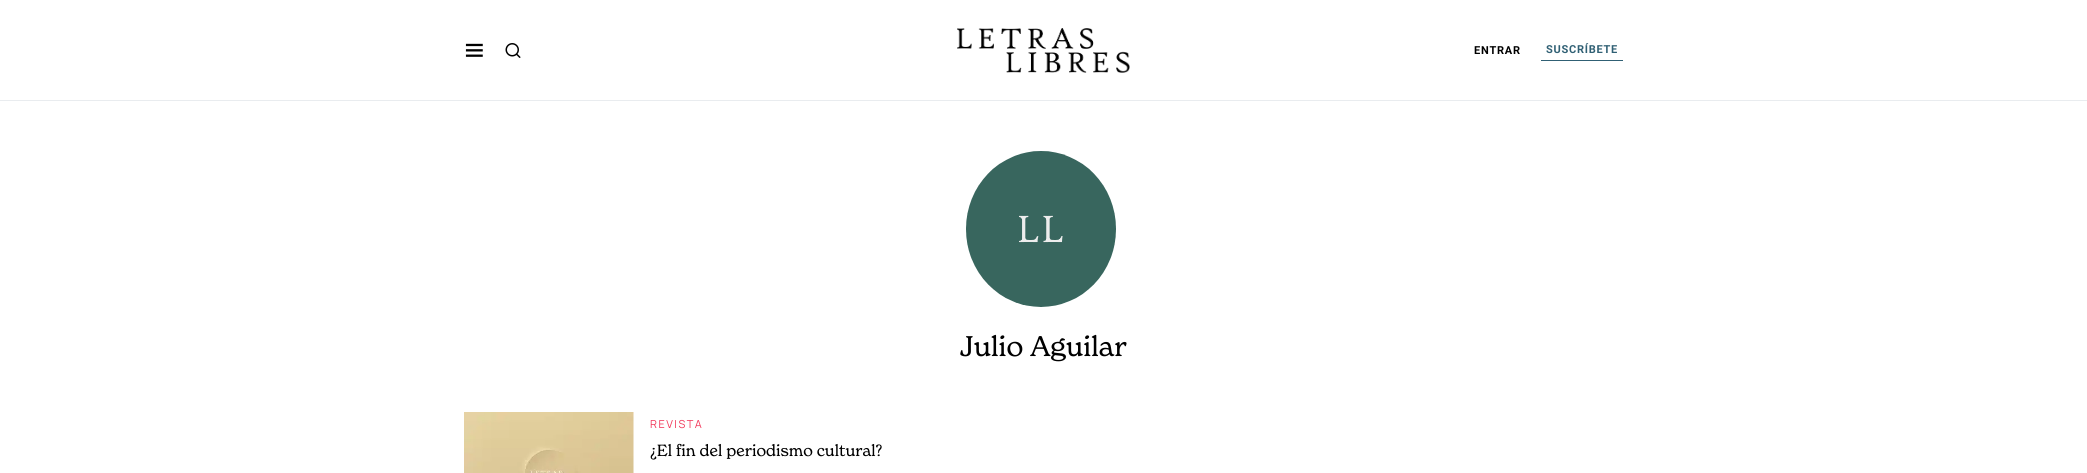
#include <cairo.h>
#include <math.h>
#include <stddef.h>

static cairo_t *ctx;

static void use_color(int r, int g, int b) {
    cairo_set_source_rgb(ctx, r / 255.0, g / 255.0, b / 255.0);
}

static void spaced_text(double x, double y, const char *s, double letter, double word) {
    cairo_move_to(ctx, x, y);
    while (*s) {
        char ch[5] = {0};
        int n = 0;
        do ch[n++] = *s++; while ((*s & 0xC0) == 0x80);
        cairo_show_text(ctx, ch);
        cairo_rel_move_to(ctx, letter + word * (*ch == ' '), 0);
    }
}

static void picture(const char *path, double x, double y, double w, double h) {
    cairo_surface_t *image = cairo_image_surface_create_from_png(path);
    cairo_save(ctx);
    cairo_set_source_surface(ctx, image, x, y);
    cairo_rectangle(ctx, x, y, w, h);
    cairo_fill(ctx);
    cairo_restore(ctx);
    cairo_surface_destroy(image);
}

int main(void) {
    cairo_surface_t *surface = cairo_image_surface_create(CAIRO_FORMAT_RGB24, 2087, 473);
    ctx = cairo_create(surface);
    cairo_font_options_t *options = cairo_font_options_create();
    cairo_font_options_set_hint_metrics(options, CAIRO_HINT_METRICS_OFF);
    cairo_font_options_set_hint_style(options, CAIRO_HINT_STYLE_NONE);
    cairo_set_font_options(ctx, options);
    cairo_set_miter_limit(ctx, 4);
    use_color(255, 255, 255);
    cairo_paint(ctx);
    use_color(233, 236, 239);
    cairo_rectangle(ctx, 0, 100, 2087, 1);
    cairo_fill(ctx);
    picture("img1.png", 465, 43, 18, 14);
    picture("img2.png", 505, 43, 16, 15);
    picture("img3.png", 957, 28, 173, 45);
    cairo_select_font_face(ctx, "Roboto", CAIRO_FONT_SLANT_NORMAL, CAIRO_FONT_WEIGHT_BOLD);
    cairo_set_font_size(ctx, 11);
    use_color(0, 0, 0);
    spaced_text(1474, 54, "ENTRAR", 0.75, 0);
    use_color(48, 96, 116);
    cairo_rectangle(ctx, 1541, 60, 82, 1);
    cairo_fill(ctx);
    spaced_text(1546, 53, "SUSCRÍBETE", 0.75, 0);
    picture("img4.png", 966, 151, 150, 156);
    cairo_select_font_face(ctx, "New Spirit", CAIRO_FONT_SLANT_NORMAL, CAIRO_FONT_WEIGHT_NORMAL);
    cairo_set_font_size(ctx, 28);
    use_color(0, 0, 0);
    cairo_move_to(ctx, 960, 356);
    cairo_show_text(ctx, "Julio Aguilar");
    picture("img5.png", 464, 412, 170, 61);
    cairo_select_font_face(ctx, "Manrope", CAIRO_FONT_SLANT_NORMAL, CAIRO_FONT_WEIGHT_NORMAL);
    cairo_set_font_size(ctx, 11);
    use_color(241, 56, 90);
    spaced_text(650, 428, "REVISTA", 1.5, 0);
    cairo_select_font_face(ctx, "New Spirit", CAIRO_FONT_SLANT_NORMAL, CAIRO_FONT_WEIGHT_NORMAL);
    cairo_set_font_size(ctx, 16);
    use_color(0, 0, 0);
    cairo_move_to(ctx, 650, 456);
    cairo_show_text(ctx, "¿El fin del periodismo cultural?");
    cairo_surface_write_to_png(surface, "result.png");
    cairo_font_options_destroy(options);
    cairo_destroy(ctx);
    cairo_surface_destroy(surface);
    return 0;
}
